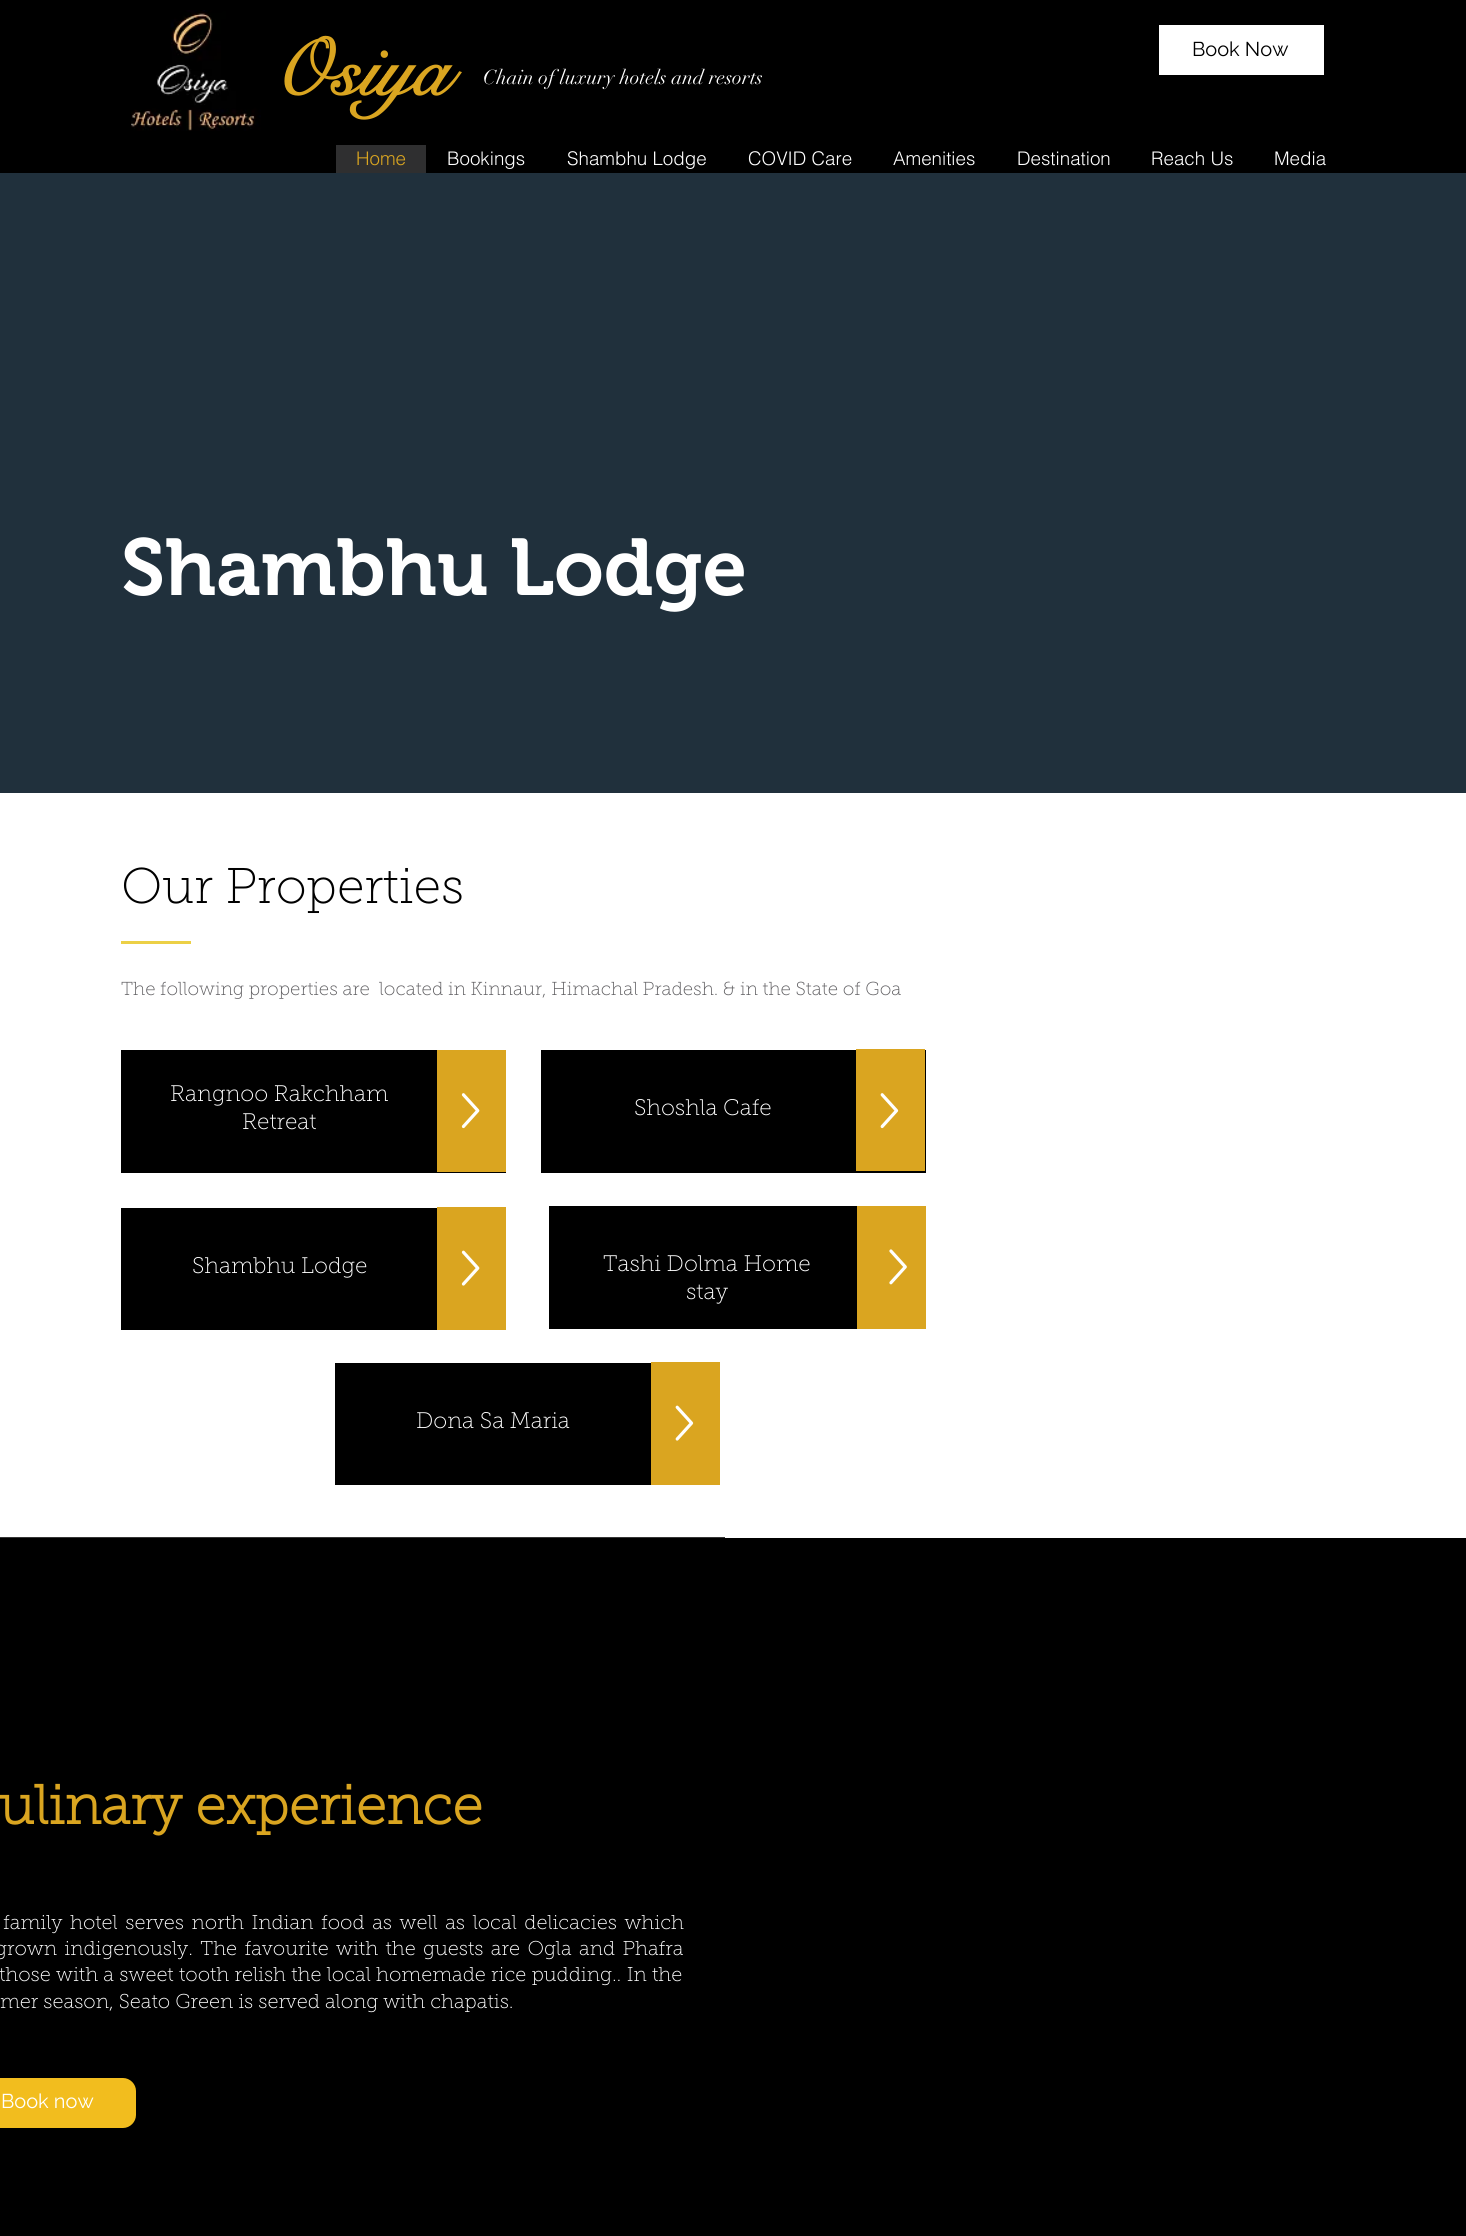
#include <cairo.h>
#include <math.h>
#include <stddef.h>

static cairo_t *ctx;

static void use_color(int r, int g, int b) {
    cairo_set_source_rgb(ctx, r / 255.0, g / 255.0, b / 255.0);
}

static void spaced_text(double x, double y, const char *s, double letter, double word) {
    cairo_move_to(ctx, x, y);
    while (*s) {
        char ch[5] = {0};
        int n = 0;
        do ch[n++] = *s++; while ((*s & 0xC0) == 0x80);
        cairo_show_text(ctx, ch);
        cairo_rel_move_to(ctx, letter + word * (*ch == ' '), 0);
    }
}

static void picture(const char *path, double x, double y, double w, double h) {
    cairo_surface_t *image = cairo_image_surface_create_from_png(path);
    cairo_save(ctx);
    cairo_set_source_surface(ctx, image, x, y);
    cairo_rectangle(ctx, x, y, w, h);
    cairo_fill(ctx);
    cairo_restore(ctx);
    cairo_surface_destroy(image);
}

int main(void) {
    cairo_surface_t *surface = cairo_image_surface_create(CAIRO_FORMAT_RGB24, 1466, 2236);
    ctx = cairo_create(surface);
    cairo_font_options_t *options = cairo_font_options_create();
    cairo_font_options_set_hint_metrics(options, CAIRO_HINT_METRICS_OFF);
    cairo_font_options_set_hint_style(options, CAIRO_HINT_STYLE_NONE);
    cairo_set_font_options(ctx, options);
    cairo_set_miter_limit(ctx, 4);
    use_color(0, 0, 0);
    cairo_paint(ctx);
    picture("img1.png", 131, 10, 130, 121);
    cairo_select_font_face(ctx, "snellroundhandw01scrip", CAIRO_FONT_SLANT_NORMAL, CAIRO_FONT_WEIGHT_BOLD);
    cairo_set_font_size(ctx, 80);
    use_color(218, 165, 32);
    cairo_move_to(ctx, 271, 95);
    cairo_show_text(ctx, "Osiya");
    use_color(255, 255, 255);
    cairo_rectangle(ctx, 1159, 25, 165, 50);
    cairo_fill(ctx);
    cairo_select_font_face(ctx, "Raleway", CAIRO_FONT_SLANT_NORMAL, CAIRO_FONT_WEIGHT_NORMAL);
    cairo_set_font_size(ctx, 20);
    use_color(0, 0, 0);
    cairo_move_to(ctx, 1192, 56);
    cairo_show_text(ctx, "Book Now");
    cairo_select_font_face(ctx, "didot", CAIRO_FONT_SLANT_NORMAL, CAIRO_FONT_WEIGHT_NORMAL);
    use_color(255, 255, 255);
    cairo_move_to(ctx, 483, 84);
    cairo_show_text(ctx, "Chain of luxury hotels and resorts");
    use_color(47, 47, 48);
    cairo_rectangle(ctx, 336, 145, 90, 28);
    cairo_fill(ctx);
    cairo_select_font_face(ctx, "helvetica Light", CAIRO_FONT_SLANT_NORMAL, CAIRO_FONT_WEIGHT_NORMAL);
    cairo_set_font_size(ctx, 18.75);
    use_color(218, 165, 32);
    cairo_move_to(ctx, 356, 165);
    cairo_show_text(ctx, "Home");
    use_color(255, 255, 255);
    cairo_move_to(ctx, 447, 165);
    cairo_show_text(ctx, "Bookings");
    cairo_move_to(ctx, 567, 165);
    cairo_show_text(ctx, "Shambhu Lodge");
    cairo_move_to(ctx, 748, 165);
    cairo_show_text(ctx, "COVID Care");
    cairo_move_to(ctx, 893, 165);
    cairo_show_text(ctx, "Amenities");
    cairo_move_to(ctx, 1017, 165);
    cairo_show_text(ctx, "Destination");
    cairo_move_to(ctx, 1151, 165);
    cairo_show_text(ctx, "Reach Us");
    cairo_move_to(ctx, 1274, 165);
    cairo_show_text(ctx, "Media");
    use_color(32, 48, 60);
    cairo_rectangle(ctx, 0, 173, 1466, 620);
    cairo_fill(ctx);
    cairo_select_font_face(ctx, "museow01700 SemiBold", CAIRO_FONT_SLANT_NORMAL, CAIRO_FONT_WEIGHT_NORMAL);
    cairo_set_font_size(ctx, 80);
    use_color(255, 255, 255);
    cairo_move_to(ctx, 121, 595);
    cairo_show_text(ctx, "Shambhu Lodge");
    cairo_rectangle(ctx, 0, 793, 1466, 745);
    cairo_fill(ctx);
    use_color(54, 54, 54);
    cairo_rectangle(ctx, 0, 1537, 725, 1);
    cairo_fill(ctx);
    cairo_select_font_face(ctx, "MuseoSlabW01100 Thin", CAIRO_FONT_SLANT_NORMAL, CAIRO_FONT_WEIGHT_NORMAL);
    cairo_set_font_size(ctx, 50);
    use_color(0, 0, 0);
    cairo_move_to(ctx, 121, 903);
    cairo_show_text(ctx, "Our Properties");
    use_color(236, 208, 70);
    cairo_rectangle(ctx, 121, 941, 70, 3);
    cairo_fill(ctx);
    cairo_set_font_size(ctx, 18.75);
    use_color(95, 94, 97);
    cairo_move_to(ctx, 121, 995);
    cairo_show_text(ctx, "The following properties are  located in Kinnaur, Himachal Pradesh. & in the State of Goa");
    use_color(0, 0, 0);
    cairo_rectangle(ctx, 121, 1050, 385, 123);
    cairo_fill(ctx);
    cairo_set_font_size(ctx, 22.5);
    use_color(255, 255, 255);
    cairo_move_to(ctx, 170, 1101);
    cairo_show_text(ctx, "Rangnoo Rakchham");
    cairo_move_to(ctx, 242, 1129);
    cairo_show_text(ctx, "Retreat");
    use_color(218, 165, 32);
    cairo_rectangle(ctx, 437, 1050, 69, 122);
    cairo_fill(ctx);
    picture("img2.png", 461, 1093, 19, 36);
    use_color(0, 0, 0);
    cairo_rectangle(ctx, 541, 1050, 385, 123);
    cairo_fill(ctx);
    use_color(218, 165, 32);
    cairo_rectangle(ctx, 856, 1049, 69, 122);
    cairo_fill(ctx);
    use_color(255, 255, 255);
    cairo_move_to(ctx, 634, 1115);
    cairo_show_text(ctx, "Shoshla Cafe");
    picture("img3.png", 880, 1093, 19, 36);
    use_color(0, 0, 0);
    cairo_rectangle(ctx, 121, 1208, 316, 122);
    cairo_fill(ctx);
    use_color(218, 165, 32);
    cairo_rectangle(ctx, 437, 1207, 69, 123);
    cairo_fill(ctx);
    use_color(255, 255, 255);
    cairo_move_to(ctx, 192, 1273);
    cairo_show_text(ctx, "Shambhu Lodge");
    picture("img4.png", 461, 1250, 19, 36);
    use_color(0, 0, 0);
    cairo_rectangle(ctx, 549, 1206, 308, 123);
    cairo_fill(ctx);
    use_color(218, 165, 32);
    cairo_rectangle(ctx, 857, 1206, 69, 123);
    cairo_fill(ctx);
    use_color(255, 255, 255);
    cairo_move_to(ctx, 603, 1271);
    cairo_show_text(ctx, "Tashi Dolma Home");
    cairo_move_to(ctx, 686, 1299);
    cairo_show_text(ctx, "stay");
    picture("img5.png", 889, 1249, 18, 36);
    use_color(0, 0, 0);
    cairo_rectangle(ctx, 335, 1363, 316, 122);
    cairo_fill(ctx);
    use_color(218, 165, 32);
    cairo_rectangle(ctx, 651, 1362, 69, 123);
    cairo_fill(ctx);
    use_color(255, 255, 255);
    cairo_move_to(ctx, 416, 1428);
    cairo_show_text(ctx, "Dona Sa Maria");
    picture("img6.png", 675, 1405, 19, 36);
    cairo_select_font_face(ctx, "MuseoSlabW01100", CAIRO_FONT_SLANT_NORMAL, CAIRO_FONT_WEIGHT_BOLD);
    cairo_set_font_size(ctx, 55);
    use_color(218, 165, 32);
    cairo_move_to(ctx, -1, 1824);
    cairo_show_text(ctx, "ulinary experience");
    cairo_select_font_face(ctx, "MuseoSlabW01100 Thin", CAIRO_FONT_SLANT_NORMAL, CAIRO_FONT_WEIGHT_NORMAL);
    cairo_set_font_size(ctx, 20);
    use_color(255, 255, 255);
    spaced_text(3, 1929, "family hotel serves north Indian food as well as local delicacies which", 0, 2.6);
    spaced_text(-5, 1955, "grown indigenously. The favourite with the guests are Ogla and Phafra", 0, 2.4);
    spaced_text(-1, 1981, "those with a sweet tooth relish the local homemade rice pudding.. In the", 0, 0.3);
    cairo_move_to(ctx, 0, 2008);
    cairo_show_text(ctx, "mer season, Seato Green is served along with chapatis.");
    use_color(242, 189, 30);
    cairo_new_path(ctx);
    cairo_move_to(ctx, 0, 2078);
    cairo_line_to(ctx, 123, 2078);
    cairo_curve_to(ctx, 130, 2078, 136, 2084, 136, 2091);
    cairo_line_to(ctx, 136, 2115);
    cairo_curve_to(ctx, 136, 2122, 130, 2128, 123, 2128);
    cairo_line_to(ctx, 0, 2128);
    cairo_close_path(ctx);
    cairo_fill(ctx);
    cairo_select_font_face(ctx, "Raleway", CAIRO_FONT_SLANT_NORMAL, CAIRO_FONT_WEIGHT_NORMAL);
    use_color(255, 255, 255);
    cairo_move_to(ctx, 1, 2108);
    cairo_show_text(ctx, "Book now");
    cairo_surface_write_to_png(surface, "result.png");
    cairo_font_options_destroy(options);
    cairo_destroy(ctx);
    cairo_surface_destroy(surface);
    return 0;
}
